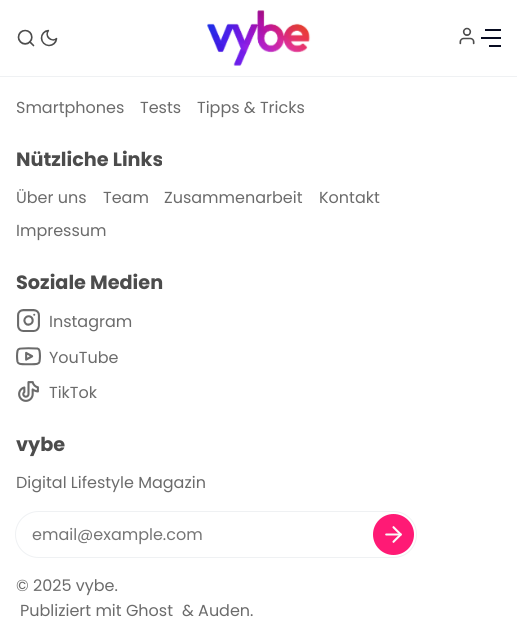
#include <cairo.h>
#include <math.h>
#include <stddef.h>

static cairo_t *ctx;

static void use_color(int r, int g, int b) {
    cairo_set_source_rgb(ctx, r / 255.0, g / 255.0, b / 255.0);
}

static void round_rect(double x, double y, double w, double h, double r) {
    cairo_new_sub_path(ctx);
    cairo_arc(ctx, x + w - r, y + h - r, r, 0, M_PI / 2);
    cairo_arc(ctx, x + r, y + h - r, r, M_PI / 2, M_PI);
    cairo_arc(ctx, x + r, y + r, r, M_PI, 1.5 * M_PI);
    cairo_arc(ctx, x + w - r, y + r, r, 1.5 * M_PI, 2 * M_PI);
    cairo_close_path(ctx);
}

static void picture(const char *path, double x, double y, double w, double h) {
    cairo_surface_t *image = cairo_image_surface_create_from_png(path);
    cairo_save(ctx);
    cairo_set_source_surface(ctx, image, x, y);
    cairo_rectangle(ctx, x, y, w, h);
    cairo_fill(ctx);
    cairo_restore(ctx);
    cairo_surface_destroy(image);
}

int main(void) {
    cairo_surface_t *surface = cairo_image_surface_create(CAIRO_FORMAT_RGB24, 517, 640);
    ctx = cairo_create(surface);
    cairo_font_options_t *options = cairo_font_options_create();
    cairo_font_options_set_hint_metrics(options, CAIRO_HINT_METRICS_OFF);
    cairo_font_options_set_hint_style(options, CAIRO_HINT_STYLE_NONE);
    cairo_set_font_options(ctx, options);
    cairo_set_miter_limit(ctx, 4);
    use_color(255, 255, 255);
    cairo_paint(ctx);
    use_color(239, 241, 243);
    cairo_rectangle(ctx, 0, 76, 517, 1);
    cairo_fill(ctx);
    picture("img1.png", 17, 29, 18, 18);
    picture("img2.png", 40, 29, 18, 18);
    picture("img3.png", 207, 10, 104, 56);
    picture("img4.png", 459, 27, 16, 18);
    use_color(8, 12, 33);
    cairo_rectangle(ctx, 481, 37, 20, 2);
    cairo_fill(ctx);
    cairo_rectangle(ctx, 485, 29, 16, 2);
    cairo_fill(ctx);
    cairo_rectangle(ctx, 489, 45, 12, 2);
    cairo_fill(ctx);
    cairo_select_font_face(ctx, "Poppins", CAIRO_FONT_SLANT_NORMAL, CAIRO_FONT_WEIGHT_NORMAL);
    cairo_set_font_size(ctx, 16);
    use_color(107, 107, 107);
    cairo_move_to(ctx, 16, 113);
    cairo_show_text(ctx, "Smartphones");
    cairo_move_to(ctx, 140, 113);
    cairo_show_text(ctx, "Tests");
    cairo_move_to(ctx, 197, 113);
    cairo_show_text(ctx, "Tipps & Tricks");
    cairo_select_font_face(ctx, "Poppins", CAIRO_FONT_SLANT_NORMAL, CAIRO_FONT_WEIGHT_BOLD);
    cairo_set_font_size(ctx, 19.25);
    use_color(76, 76, 76);
    cairo_move_to(ctx, 16, 166);
    cairo_show_text(ctx, "Nützliche Links");
    cairo_select_font_face(ctx, "Poppins", CAIRO_FONT_SLANT_NORMAL, CAIRO_FONT_WEIGHT_NORMAL);
    cairo_set_font_size(ctx, 16);
    use_color(107, 107, 107);
    cairo_move_to(ctx, 16, 203);
    cairo_show_text(ctx, "Über uns");
    cairo_move_to(ctx, 103, 203);
    cairo_show_text(ctx, "Team");
    cairo_move_to(ctx, 164, 203);
    cairo_show_text(ctx, "Zusammenarbeit");
    cairo_move_to(ctx, 319, 203);
    cairo_show_text(ctx, "Kontakt");
    cairo_move_to(ctx, 16, 236);
    cairo_show_text(ctx, "Impressum");
    cairo_select_font_face(ctx, "Poppins", CAIRO_FONT_SLANT_NORMAL, CAIRO_FONT_WEIGHT_BOLD);
    cairo_set_font_size(ctx, 19.25);
    use_color(76, 76, 76);
    cairo_move_to(ctx, 16, 289);
    cairo_show_text(ctx, "Soziale Medien");
    picture("img5.png", 17, 309, 23, 23);
    cairo_select_font_face(ctx, "Poppins", CAIRO_FONT_SLANT_NORMAL, CAIRO_FONT_WEIGHT_NORMAL);
    cairo_set_font_size(ctx, 16);
    use_color(107, 107, 107);
    cairo_move_to(ctx, 49, 327);
    cairo_show_text(ctx, "Instagram");
    picture("img6.png", 16, 347, 25, 19);
    cairo_move_to(ctx, 49, 363);
    cairo_show_text(ctx, "YouTube");
    picture("img7.png", 18, 381, 21, 21);
    cairo_move_to(ctx, 49, 398);
    cairo_show_text(ctx, "TikTok");
    cairo_select_font_face(ctx, "Poppins", CAIRO_FONT_SLANT_NORMAL, CAIRO_FONT_WEIGHT_BOLD);
    cairo_set_font_size(ctx, 19.25);
    use_color(76, 76, 76);
    cairo_move_to(ctx, 16, 451);
    cairo_show_text(ctx, "vybe");
    cairo_select_font_face(ctx, "Poppins", CAIRO_FONT_SLANT_NORMAL, CAIRO_FONT_WEIGHT_NORMAL);
    cairo_set_font_size(ctx, 16);
    use_color(107, 107, 107);
    cairo_move_to(ctx, 16, 488);
    cairo_show_text(ctx, "Digital Lifestyle Magazin");
    round_rect(15.5, 511.5, 401, 46, 23);
    use_color(239, 241, 243);
    cairo_set_line_width(ctx, 1);
    cairo_stroke(ctx);
    use_color(117, 117, 117);
    cairo_move_to(ctx, 32, 540);
    cairo_show_text(ctx, "email@example.com");
    use_color(255, 26, 117);
    cairo_new_path(ctx);
    cairo_arc(ctx, 393.5, 534.5, 20.5, 0, 2 * M_PI);
    cairo_fill(ctx);
    picture("img8.png", 385, 526, 17, 17);
    use_color(107, 107, 107);
    cairo_move_to(ctx, 16, 591);
    cairo_show_text(ctx, "© 2025 vybe.");
    cairo_move_to(ctx, 20, 616);
    cairo_show_text(ctx, "Publiziert mit Ghost");
    cairo_move_to(ctx, 182, 616);
    cairo_show_text(ctx, "& Auden.");
    cairo_surface_write_to_png(surface, "result.png");
    cairo_font_options_destroy(options);
    cairo_destroy(ctx);
    cairo_surface_destroy(surface);
    return 0;
}
